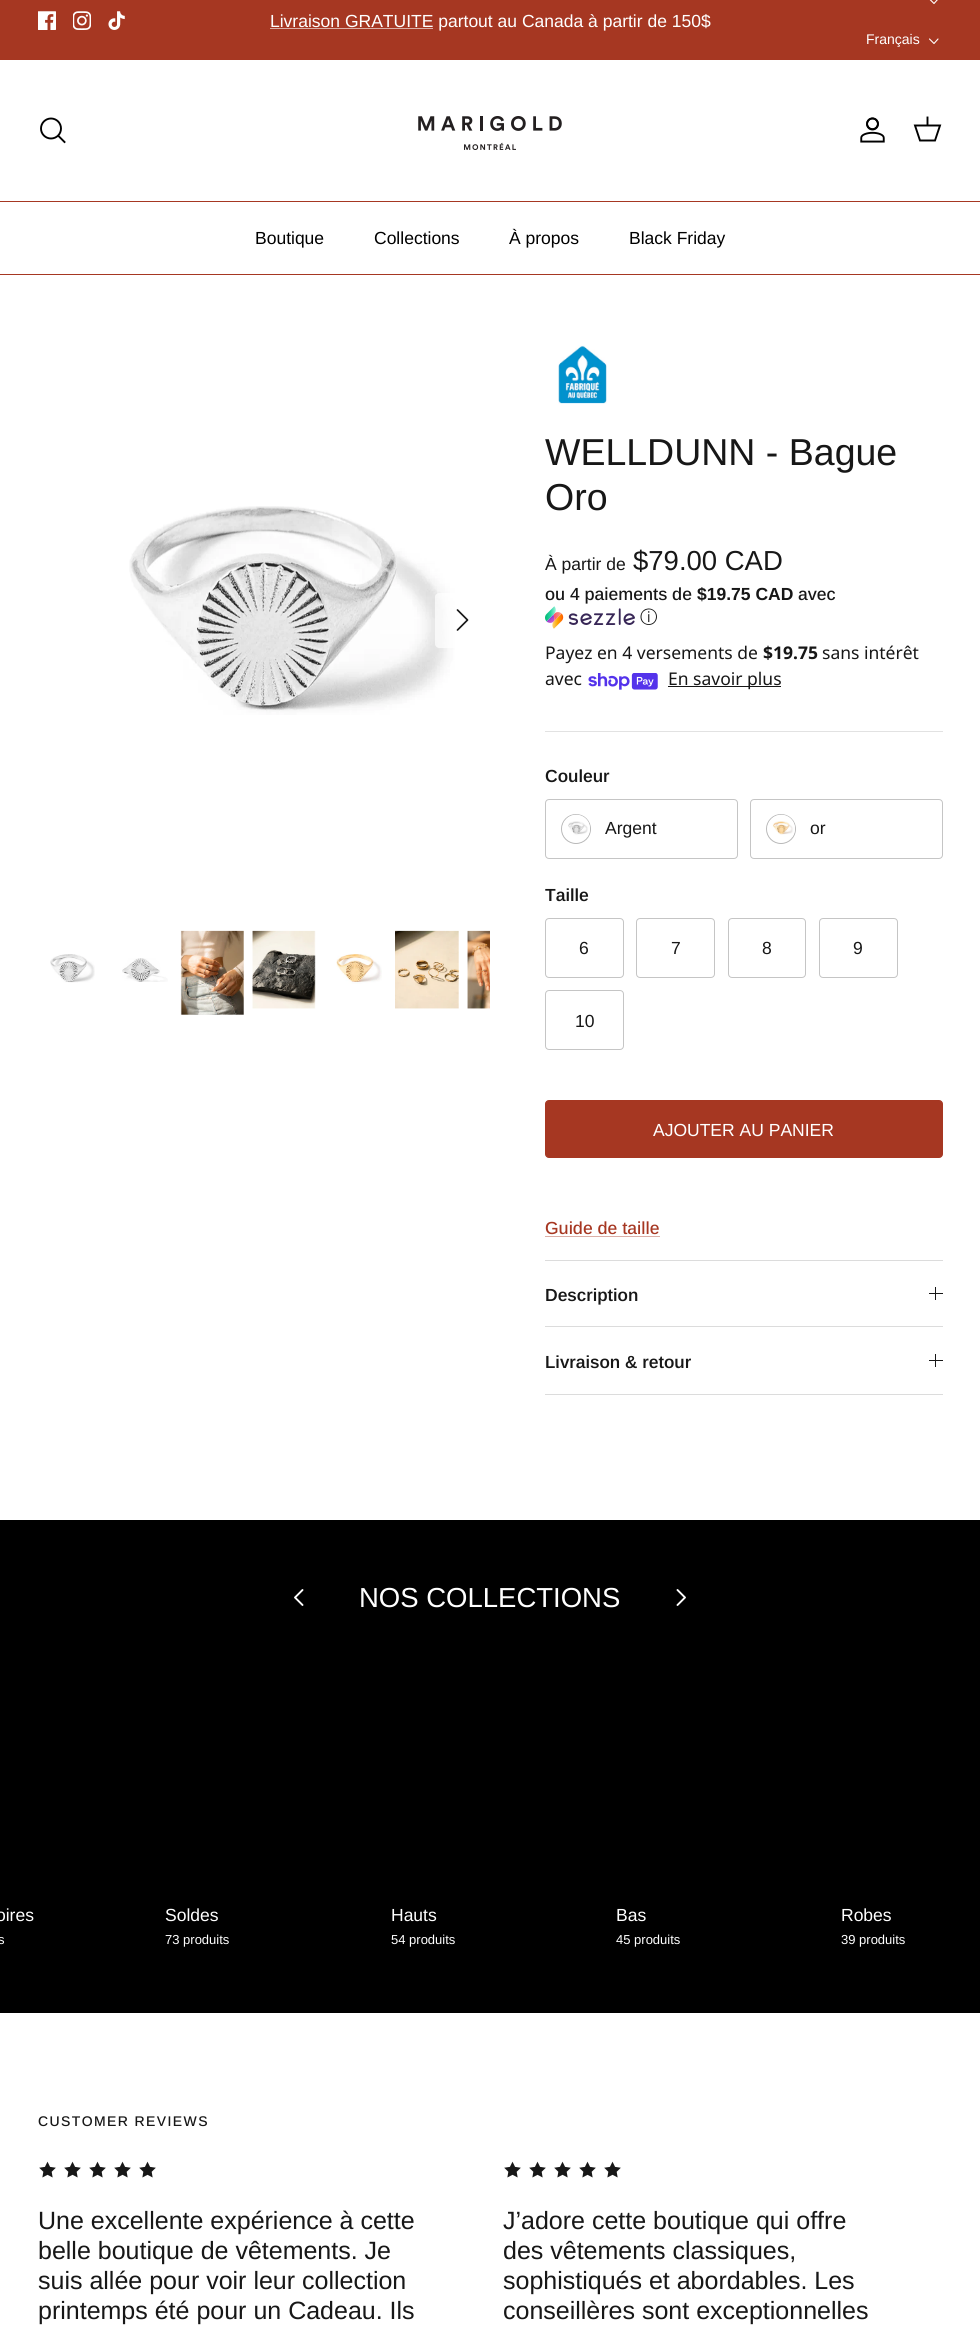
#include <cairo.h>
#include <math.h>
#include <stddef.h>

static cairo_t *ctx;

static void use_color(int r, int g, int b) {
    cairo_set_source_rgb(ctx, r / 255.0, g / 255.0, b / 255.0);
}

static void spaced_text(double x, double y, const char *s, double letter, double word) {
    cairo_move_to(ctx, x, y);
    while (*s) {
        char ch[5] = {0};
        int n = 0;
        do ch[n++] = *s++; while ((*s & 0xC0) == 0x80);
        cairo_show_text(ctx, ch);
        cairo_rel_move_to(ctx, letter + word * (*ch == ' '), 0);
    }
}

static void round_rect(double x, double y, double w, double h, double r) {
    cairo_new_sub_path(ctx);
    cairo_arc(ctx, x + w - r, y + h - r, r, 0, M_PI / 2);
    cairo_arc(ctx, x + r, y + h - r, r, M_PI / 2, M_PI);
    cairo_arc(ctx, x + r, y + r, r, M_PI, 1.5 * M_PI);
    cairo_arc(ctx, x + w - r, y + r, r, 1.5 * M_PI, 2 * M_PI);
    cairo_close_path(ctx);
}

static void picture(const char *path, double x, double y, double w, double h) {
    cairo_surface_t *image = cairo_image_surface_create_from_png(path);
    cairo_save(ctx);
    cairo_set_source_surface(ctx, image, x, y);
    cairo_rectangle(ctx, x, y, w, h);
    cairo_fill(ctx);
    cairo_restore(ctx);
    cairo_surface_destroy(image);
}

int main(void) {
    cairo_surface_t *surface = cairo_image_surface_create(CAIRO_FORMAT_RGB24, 980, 2328);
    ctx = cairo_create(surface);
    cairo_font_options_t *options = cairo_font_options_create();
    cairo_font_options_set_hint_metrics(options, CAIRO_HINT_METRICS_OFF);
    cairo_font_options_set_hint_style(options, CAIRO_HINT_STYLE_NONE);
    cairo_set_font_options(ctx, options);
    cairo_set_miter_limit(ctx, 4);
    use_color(255, 255, 255);
    cairo_paint(ctx);
    use_color(166, 55, 34);
    cairo_rectangle(ctx, 0, 0, 980, 60);
    cairo_fill(ctx);
    picture("img1.png", 38, 11, 18, 19);
    picture("img2.png", 73, 11, 18, 19);
    picture("img3.png", 108, 11, 17, 19);
    use_color(219, 175, 167);
    cairo_rectangle(ctx, 270, 28, 163, 1);
    cairo_fill(ctx);
    cairo_select_font_face(ctx, "Arimo", CAIRO_FONT_SLANT_NORMAL, CAIRO_FONT_WEIGHT_NORMAL);
    cairo_set_font_size(ctx, 17.5);
    use_color(255, 255, 255);
    cairo_move_to(ctx, 270, 27);
    cairo_show_text(ctx, "Livraison GRATUITE partout au Canada à partir de 150$");
    cairo_new_path(ctx);
    cairo_move_to(ctx, 929.5, -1);
    cairo_line_to(ctx, 934, 3.5);
    cairo_line_to(ctx, 938, -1);
    cairo_set_line_width(ctx, 1.1);
    cairo_set_line_cap(ctx, CAIRO_LINE_CAP_ROUND);
    cairo_set_line_join(ctx, CAIRO_LINE_JOIN_ROUND);
    cairo_stroke(ctx);
    cairo_set_font_size(ctx, 14);
    cairo_move_to(ctx, 866, 44);
    cairo_show_text(ctx, "Français");
    cairo_new_path(ctx);
    cairo_move_to(ctx, 929.5, 39);
    cairo_line_to(ctx, 934, 43.5);
    cairo_line_to(ctx, 938, 39);
    cairo_stroke(ctx);
    use_color(166, 55, 34);
    cairo_rectangle(ctx, 0, 201, 980, 1);
    cairo_fill(ctx);
    cairo_arc(ctx, 51, 128.5, 10, 0, 2 * M_PI);
    use_color(0, 0, 0);
    cairo_set_line_width(ctx, 1.9);
    cairo_set_line_cap(ctx, CAIRO_LINE_CAP_BUTT);
    cairo_set_line_join(ctx, CAIRO_LINE_JOIN_MITER);
    cairo_stroke(ctx);
    cairo_new_path(ctx);
    cairo_move_to(ctx, 58.5, 136);
    cairo_line_to(ctx, 64.5, 142);
    cairo_set_line_cap(ctx, CAIRO_LINE_CAP_SQUARE);
    cairo_stroke(ctx);
    picture("img4.png", 418, 116, 144, 34);
    picture("img5.png", 860, 117, 25, 26);
    cairo_new_path(ctx);
    cairo_move_to(ctx, 915, 125.5);
    cairo_line_to(ctx, 940, 125.5);
    cairo_line_to(ctx, 935, 140.5);
    cairo_line_to(ctx, 920, 140.5);
    cairo_close_path(ctx);
    cairo_set_line_cap(ctx, CAIRO_LINE_CAP_BUTT);
    cairo_stroke(ctx);
    cairo_new_path(ctx);
    cairo_move_to(ctx, 927.5, 125);
    cairo_line_to(ctx, 927.5, 117.5);
    cairo_set_line_cap(ctx, CAIRO_LINE_CAP_SQUARE);
    cairo_stroke(ctx);
    use_color(166, 55, 34);
    cairo_rectangle(ctx, 0, 274, 980, 1);
    cairo_fill(ctx);
    cairo_set_font_size(ctx, 17.5);
    use_color(0, 0, 0);
    cairo_move_to(ctx, 255, 244);
    cairo_show_text(ctx, "Boutique");
    cairo_move_to(ctx, 374, 244);
    cairo_show_text(ctx, "Collections");
    cairo_move_to(ctx, 509, 244);
    cairo_show_text(ctx, "À propos");
    cairo_move_to(ctx, 629, 244);
    cairo_show_text(ctx, "Black Friday");
    picture("img6.png", 129, 506, 326, 209);
    cairo_set_source_rgba(ctx, 1, 1, 1, 0.7);
    cairo_new_path(ctx);
    cairo_move_to(ctx, 439, 593);
    cairo_line_to(ctx, 490, 593);
    cairo_line_to(ctx, 490, 648);
    cairo_line_to(ctx, 439, 648);
    cairo_curve_to(ctx, 437, 648, 435, 646, 435, 644);
    cairo_line_to(ctx, 435, 597);
    cairo_curve_to(ctx, 435, 595, 437, 593, 439, 593);
    cairo_close_path(ctx);
    cairo_fill(ctx);
    cairo_new_path(ctx);
    cairo_move_to(ctx, 457.5, 630);
    cairo_line_to(ctx, 467.5, 620);
    cairo_line_to(ctx, 457.5, 610);
    use_color(23, 23, 23);
    cairo_set_line_width(ctx, 1.7);
    cairo_set_line_cap(ctx, CAIRO_LINE_CAP_ROUND);
    cairo_set_line_join(ctx, CAIRO_LINE_JOIN_ROUND);
    cairo_stroke(ctx);
    picture("img7.png", 50, 954, 45, 29);
    picture("img8.png", 122, 958, 46, 24);
    picture("img9.png", 180, 930, 64, 85);
    picture("img10.png", 252, 930, 64, 79);
    picture("img11.png", 336, 954, 46, 30);
    picture("img12.png", 395, 930, 64, 79);
    picture("img13.png", 467, 930, 23, 79);
    picture("img14.png", 558, 345, 49, 59);
    cairo_set_font_size(ctx, 37.5);
    cairo_move_to(ctx, 545, 465);
    cairo_show_text(ctx, "WELLDUNN - Bague");
    cairo_move_to(ctx, 545, 510);
    cairo_show_text(ctx, "Oro");
    cairo_set_font_size(ctx, 17.5);
    cairo_move_to(ctx, 545, 570);
    cairo_show_text(ctx, "À partir de");
    cairo_set_font_size(ctx, 27.5);
    cairo_move_to(ctx, 633, 570);
    cairo_show_text(ctx, "$79.00 CAD");
    cairo_select_font_face(ctx, "Arimo Medium", CAIRO_FONT_SLANT_NORMAL, CAIRO_FONT_WEIGHT_NORMAL);
    cairo_set_font_size(ctx, 17.5);
    cairo_move_to(ctx, 545, 600);
    cairo_show_text(ctx, "ou 4 paiements de");
    cairo_select_font_face(ctx, "Arimo", CAIRO_FONT_SLANT_NORMAL, CAIRO_FONT_WEIGHT_BOLD);
    cairo_move_to(ctx, 697, 600);
    cairo_show_text(ctx, "$19.75 CAD");
    cairo_select_font_face(ctx, "Arimo Medium", CAIRO_FONT_SLANT_NORMAL, CAIRO_FONT_WEIGHT_NORMAL);
    cairo_move_to(ctx, 798, 600);
    cairo_show_text(ctx, "avec");
    picture("img15.png", 545, 606, 90, 23);
    cairo_select_font_face(ctx, "WenQuanYi Zen Hei Medium", CAIRO_FONT_SLANT_NORMAL, CAIRO_FONT_WEIGHT_NORMAL);
    cairo_move_to(ctx, 640, 623);
    cairo_show_text(ctx, "ⓘ");
    cairo_select_font_face(ctx, "Noto Sans", CAIRO_FONT_SLANT_NORMAL, CAIRO_FONT_WEIGHT_NORMAL);
    cairo_move_to(ctx, 545, 659);
    cairo_show_text(ctx, "Payez en 4 versements de");
    cairo_select_font_face(ctx, "Noto Sans", CAIRO_FONT_SLANT_NORMAL, CAIRO_FONT_WEIGHT_BOLD);
    cairo_move_to(ctx, 763, 659);
    cairo_show_text(ctx, "$19.75");
    cairo_select_font_face(ctx, "Noto Sans", CAIRO_FONT_SLANT_NORMAL, CAIRO_FONT_WEIGHT_NORMAL);
    cairo_move_to(ctx, 822, 659);
    cairo_show_text(ctx, "sans intérêt");
    cairo_move_to(ctx, 545, 685);
    cairo_show_text(ctx, "avec");
    picture("img16.png", 588, 673, 70, 17);
    cairo_rectangle(ctx, 668, 686, 113, 1);
    cairo_fill(ctx);
    cairo_move_to(ctx, 668, 685);
    cairo_show_text(ctx, "En savoir plus");
    use_color(226, 226, 226);
    cairo_rectangle(ctx, 545, 731, 398, 1);
    cairo_fill(ctx);
    cairo_select_font_face(ctx, "Arimo SemiBold", CAIRO_FONT_SLANT_NORMAL, CAIRO_FONT_WEIGHT_NORMAL);
    use_color(23, 23, 23);
    cairo_move_to(ctx, 545, 782);
    cairo_show_text(ctx, "Couleur");
    round_rect(545.5, 799.5, 192, 59, 3.5);
    use_color(197, 197, 197);
    cairo_set_line_width(ctx, 1);
    cairo_set_line_cap(ctx, CAIRO_LINE_CAP_BUTT);
    cairo_set_line_join(ctx, CAIRO_LINE_JOIN_MITER);
    cairo_stroke(ctx);
    cairo_arc(ctx, 576, 829, 14.5, 0, 2 * M_PI);
    use_color(185, 185, 185);
    cairo_stroke(ctx);
    picture("img17.png", 562, 814, 28, 23);
    cairo_select_font_face(ctx, "Arimo", CAIRO_FONT_SLANT_NORMAL, CAIRO_FONT_WEIGHT_NORMAL);
    use_color(23, 23, 23);
    cairo_move_to(ctx, 605, 834);
    cairo_show_text(ctx, "Argent");
    round_rect(750.5, 799.5, 192, 59, 3.5);
    use_color(197, 197, 197);
    cairo_stroke(ctx);
    cairo_arc(ctx, 781, 829, 14.5, 0, 2 * M_PI);
    use_color(185, 185, 185);
    cairo_stroke(ctx);
    picture("img18.png", 767, 814, 28, 23);
    use_color(23, 23, 23);
    cairo_move_to(ctx, 810, 834);
    cairo_show_text(ctx, "or");
    cairo_select_font_face(ctx, "Arimo SemiBold", CAIRO_FONT_SLANT_NORMAL, CAIRO_FONT_WEIGHT_NORMAL);
    cairo_move_to(ctx, 545, 901);
    cairo_show_text(ctx, "Taille");
    round_rect(545.5, 918.5, 78, 59, 3.5);
    use_color(197, 197, 197);
    cairo_stroke(ctx);
    cairo_select_font_face(ctx, "Arimo", CAIRO_FONT_SLANT_NORMAL, CAIRO_FONT_WEIGHT_NORMAL);
    use_color(23, 23, 23);
    cairo_move_to(ctx, 579, 954);
    cairo_show_text(ctx, "6");
    round_rect(636.5, 918.5, 78, 59, 3.5);
    use_color(197, 197, 197);
    cairo_stroke(ctx);
    use_color(23, 23, 23);
    cairo_move_to(ctx, 671, 954);
    cairo_show_text(ctx, "7");
    round_rect(728.5, 918.5, 77, 59, 3.5);
    use_color(197, 197, 197);
    cairo_stroke(ctx);
    use_color(23, 23, 23);
    cairo_move_to(ctx, 762, 954);
    cairo_show_text(ctx, "8");
    round_rect(819.5, 918.5, 78, 59, 3.5);
    use_color(197, 197, 197);
    cairo_stroke(ctx);
    use_color(23, 23, 23);
    cairo_move_to(ctx, 853, 954);
    cairo_show_text(ctx, "9");
    round_rect(545.5, 990.5, 78, 59, 3.5);
    use_color(197, 197, 197);
    cairo_stroke(ctx);
    use_color(23, 23, 23);
    cairo_move_to(ctx, 575, 1027);
    cairo_show_text(ctx, "10");
    use_color(166, 55, 34);
    round_rect(545.5, 1100.5, 397, 57, 3.5);
    cairo_fill_preserve(ctx);
    cairo_stroke(ctx);
    use_color(255, 255, 255);
    cairo_move_to(ctx, 653, 1136);
    cairo_show_text(ctx, "AJOUTER AU PANIER");
    cairo_select_font_face(ctx, "Arimo Medium", CAIRO_FONT_SLANT_NORMAL, CAIRO_FONT_WEIGHT_NORMAL);
    use_color(166, 55, 34);
    cairo_move_to(ctx, 545, 1234);
    cairo_show_text(ctx, "Guide de taille");
    use_color(219, 175, 167);
    cairo_rectangle(ctx, 545, 1236, 115, 1);
    cairo_fill(ctx);
    use_color(220, 220, 220);
    cairo_rectangle(ctx, 545, 1260, 398, 1);
    cairo_fill(ctx);
    cairo_rectangle(ctx, 545, 1326, 398, 1);
    cairo_fill(ctx);
    cairo_select_font_face(ctx, "Arimo SemiBold", CAIRO_FONT_SLANT_NORMAL, CAIRO_FONT_WEIGHT_NORMAL);
    use_color(23, 23, 23);
    cairo_move_to(ctx, 545, 1301);
    cairo_show_text(ctx, "Description");
    cairo_rectangle(ctx, 935, 1287, 1, 13);
    cairo_fill(ctx);
    cairo_rectangle(ctx, 929, 1293, 14, 1);
    cairo_fill(ctx);
    use_color(220, 220, 220);
    cairo_rectangle(ctx, 545, 1394, 398, 1);
    cairo_fill(ctx);
    use_color(23, 23, 23);
    cairo_move_to(ctx, 545, 1368);
    cairo_show_text(ctx, "Livraison & retour");
    cairo_rectangle(ctx, 935, 1354, 1, 13);
    cairo_fill(ctx);
    cairo_rectangle(ctx, 929, 1360, 14, 1);
    cairo_fill(ctx);
    use_color(0, 0, 0);
    cairo_rectangle(ctx, 0, 1520, 980, 493);
    cairo_fill(ctx);
    cairo_new_path(ctx);
    cairo_move_to(ctx, 302.5, 1605);
    cairo_line_to(ctx, 295, 1597.5);
    cairo_line_to(ctx, 302.5, 1590);
    use_color(255, 255, 255);
    cairo_set_line_width(ctx, 1.9);
    cairo_set_line_cap(ctx, CAIRO_LINE_CAP_ROUND);
    cairo_set_line_join(ctx, CAIRO_LINE_JOIN_ROUND);
    cairo_stroke(ctx);
    cairo_select_font_face(ctx, "Arimo", CAIRO_FONT_SLANT_NORMAL, CAIRO_FONT_WEIGHT_NORMAL);
    cairo_set_font_size(ctx, 27.5);
    cairo_move_to(ctx, 359, 1607);
    cairo_show_text(ctx, "NOS COLLECTIONS");
    cairo_new_path(ctx);
    cairo_move_to(ctx, 677.5, 1605);
    cairo_line_to(ctx, 685, 1597.5);
    cairo_line_to(ctx, 677.5, 1590);
    cairo_stroke(ctx);
    cairo_set_font_size(ctx, 17.5);
    cairo_move_to(ctx, -4, 1921);
    cairo_show_text(ctx, "oires");
    cairo_set_font_size(ctx, 13);
    cairo_move_to(ctx, -2, 1944);
    cairo_show_text(ctx, "s");
    cairo_set_font_size(ctx, 17.5);
    cairo_move_to(ctx, 165, 1921);
    cairo_show_text(ctx, "Soldes");
    cairo_set_font_size(ctx, 13);
    cairo_move_to(ctx, 165, 1944);
    cairo_show_text(ctx, "73 produits");
    cairo_set_font_size(ctx, 17.5);
    cairo_move_to(ctx, 391, 1921);
    cairo_show_text(ctx, "Hauts");
    cairo_set_font_size(ctx, 13);
    cairo_move_to(ctx, 391, 1944);
    cairo_show_text(ctx, "54 produits");
    cairo_set_font_size(ctx, 17.5);
    cairo_move_to(ctx, 616, 1921);
    cairo_show_text(ctx, "Bas");
    cairo_set_font_size(ctx, 13);
    cairo_move_to(ctx, 616, 1944);
    cairo_show_text(ctx, "45 produits");
    cairo_set_font_size(ctx, 17.5);
    cairo_move_to(ctx, 841, 1921);
    cairo_show_text(ctx, "Robes");
    cairo_set_font_size(ctx, 13);
    cairo_move_to(ctx, 841, 1944);
    cairo_show_text(ctx, "39 produits");
    cairo_select_font_face(ctx, "Arimo Medium", CAIRO_FONT_SLANT_NORMAL, CAIRO_FONT_WEIGHT_NORMAL);
    cairo_set_font_size(ctx, 14);
    use_color(23, 23, 23);
    spaced_text(38, 2126, "CUSTOMER REVIEWS", 1.4, 0);
    picture("img19.png", 39, 2161, 17, 17);
    picture("img19.png", 64, 2161, 17, 17);
    picture("img19.png", 89, 2161, 17, 17);
    picture("img19.png", 114, 2161, 17, 17);
    picture("img19.png", 139, 2161, 17, 17);
    cairo_select_font_face(ctx, "Arimo", CAIRO_FONT_SLANT_NORMAL, CAIRO_FONT_WEIGHT_NORMAL);
    cairo_set_font_size(ctx, 25);
    cairo_move_to(ctx, 38, 2229);
    cairo_show_text(ctx, "Une excellente expérience à cette");
    cairo_move_to(ctx, 38, 2259);
    cairo_show_text(ctx, "belle boutique de vêtements. Je");
    cairo_move_to(ctx, 38, 2289);
    cairo_show_text(ctx, "suis allée pour voir leur collection");
    cairo_move_to(ctx, 38, 2319);
    cairo_show_text(ctx, "printemps été pour un Cadeau. Ils");
    picture("img19.png", 504, 2161, 17, 17);
    picture("img19.png", 529, 2161, 17, 17);
    picture("img19.png", 554, 2161, 17, 17);
    picture("img19.png", 579, 2161, 17, 17);
    picture("img19.png", 604, 2161, 17, 17);
    cairo_move_to(ctx, 503, 2229);
    cairo_show_text(ctx, "J’adore cette boutique qui offre");
    cairo_move_to(ctx, 503, 2259);
    cairo_show_text(ctx, "des vêtements classiques,");
    cairo_move_to(ctx, 503, 2289);
    cairo_show_text(ctx, "sophistiqués et abordables. Les");
    cairo_move_to(ctx, 503, 2319);
    cairo_show_text(ctx, "conseillères sont exceptionnelles");
    cairo_surface_write_to_png(surface, "result.png");
    cairo_font_options_destroy(options);
    cairo_destroy(ctx);
    cairo_surface_destroy(surface);
    return 0;
}
